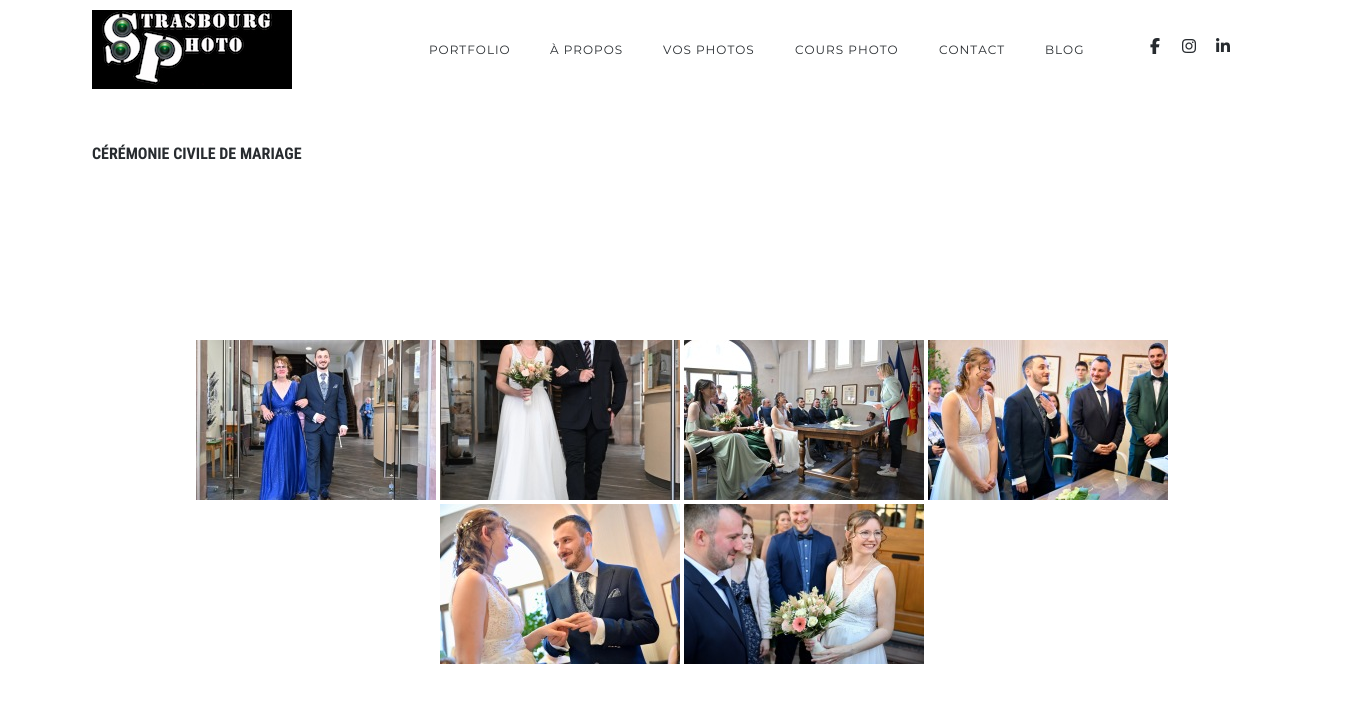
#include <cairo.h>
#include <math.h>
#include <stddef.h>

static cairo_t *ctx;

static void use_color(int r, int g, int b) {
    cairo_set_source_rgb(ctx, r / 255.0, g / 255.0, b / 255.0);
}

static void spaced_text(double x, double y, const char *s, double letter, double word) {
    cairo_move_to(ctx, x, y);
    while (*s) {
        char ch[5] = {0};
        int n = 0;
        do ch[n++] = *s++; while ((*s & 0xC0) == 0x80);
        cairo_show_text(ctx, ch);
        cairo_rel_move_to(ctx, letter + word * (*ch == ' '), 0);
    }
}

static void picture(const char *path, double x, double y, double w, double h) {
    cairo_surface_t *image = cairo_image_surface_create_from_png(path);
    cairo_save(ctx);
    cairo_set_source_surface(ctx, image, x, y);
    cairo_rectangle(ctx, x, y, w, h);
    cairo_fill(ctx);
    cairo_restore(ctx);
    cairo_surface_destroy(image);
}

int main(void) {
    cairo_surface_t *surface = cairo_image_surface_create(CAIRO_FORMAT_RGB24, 1363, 706);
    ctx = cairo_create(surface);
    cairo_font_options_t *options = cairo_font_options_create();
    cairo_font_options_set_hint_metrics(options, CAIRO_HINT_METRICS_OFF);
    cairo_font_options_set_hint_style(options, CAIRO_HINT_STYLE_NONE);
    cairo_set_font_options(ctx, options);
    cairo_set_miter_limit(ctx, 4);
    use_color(255, 255, 255);
    cairo_paint(ctx);
    picture("img1.png", 92, 10, 200, 79);
    cairo_select_font_face(ctx, "Montserrat", CAIRO_FONT_SLANT_NORMAL, CAIRO_FONT_WEIGHT_NORMAL);
    cairo_set_font_size(ctx, 12);
    use_color(39, 43, 47);
    spaced_text(429, 54, "PORTFOLIO", 1, 0);
    spaced_text(550, 54, "À PROPOS", 1, 0);
    spaced_text(663, 54, "VOS PHOTOS", 1, 0);
    spaced_text(795, 54, "COURS PHOTO", 1, 0);
    spaced_text(939, 54, "CONTACT", 1, 0);
    spaced_text(1045, 54, "BLOG", 1, 0);
    picture("img2.png", 1150, 38, 10, 16);
    picture("img3.png", 1182, 39, 14, 14);
    picture("img4.png", 1216, 38, 14, 14);
    cairo_select_font_face(ctx, "Roboto Condensed", CAIRO_FONT_SLANT_NORMAL, CAIRO_FONT_WEIGHT_BOLD);
    cairo_set_font_size(ctx, 16);
    cairo_move_to(ctx, 92, 159);
    cairo_show_text(ctx, "CÉRÉMONIE CIVILE DE MARIAGE");
    picture("img5.png", 196, 340, 240, 160);
    picture("img6.png", 440, 340, 240, 160);
    picture("img7.png", 684, 340, 240, 160);
    picture("img8.png", 928, 340, 240, 160);
    picture("img9.png", 440, 504, 240, 160);
    picture("img10.png", 684, 504, 240, 160);
    cairo_surface_write_to_png(surface, "result.png");
    cairo_font_options_destroy(options);
    cairo_destroy(ctx);
    cairo_surface_destroy(surface);
    return 0;
}
